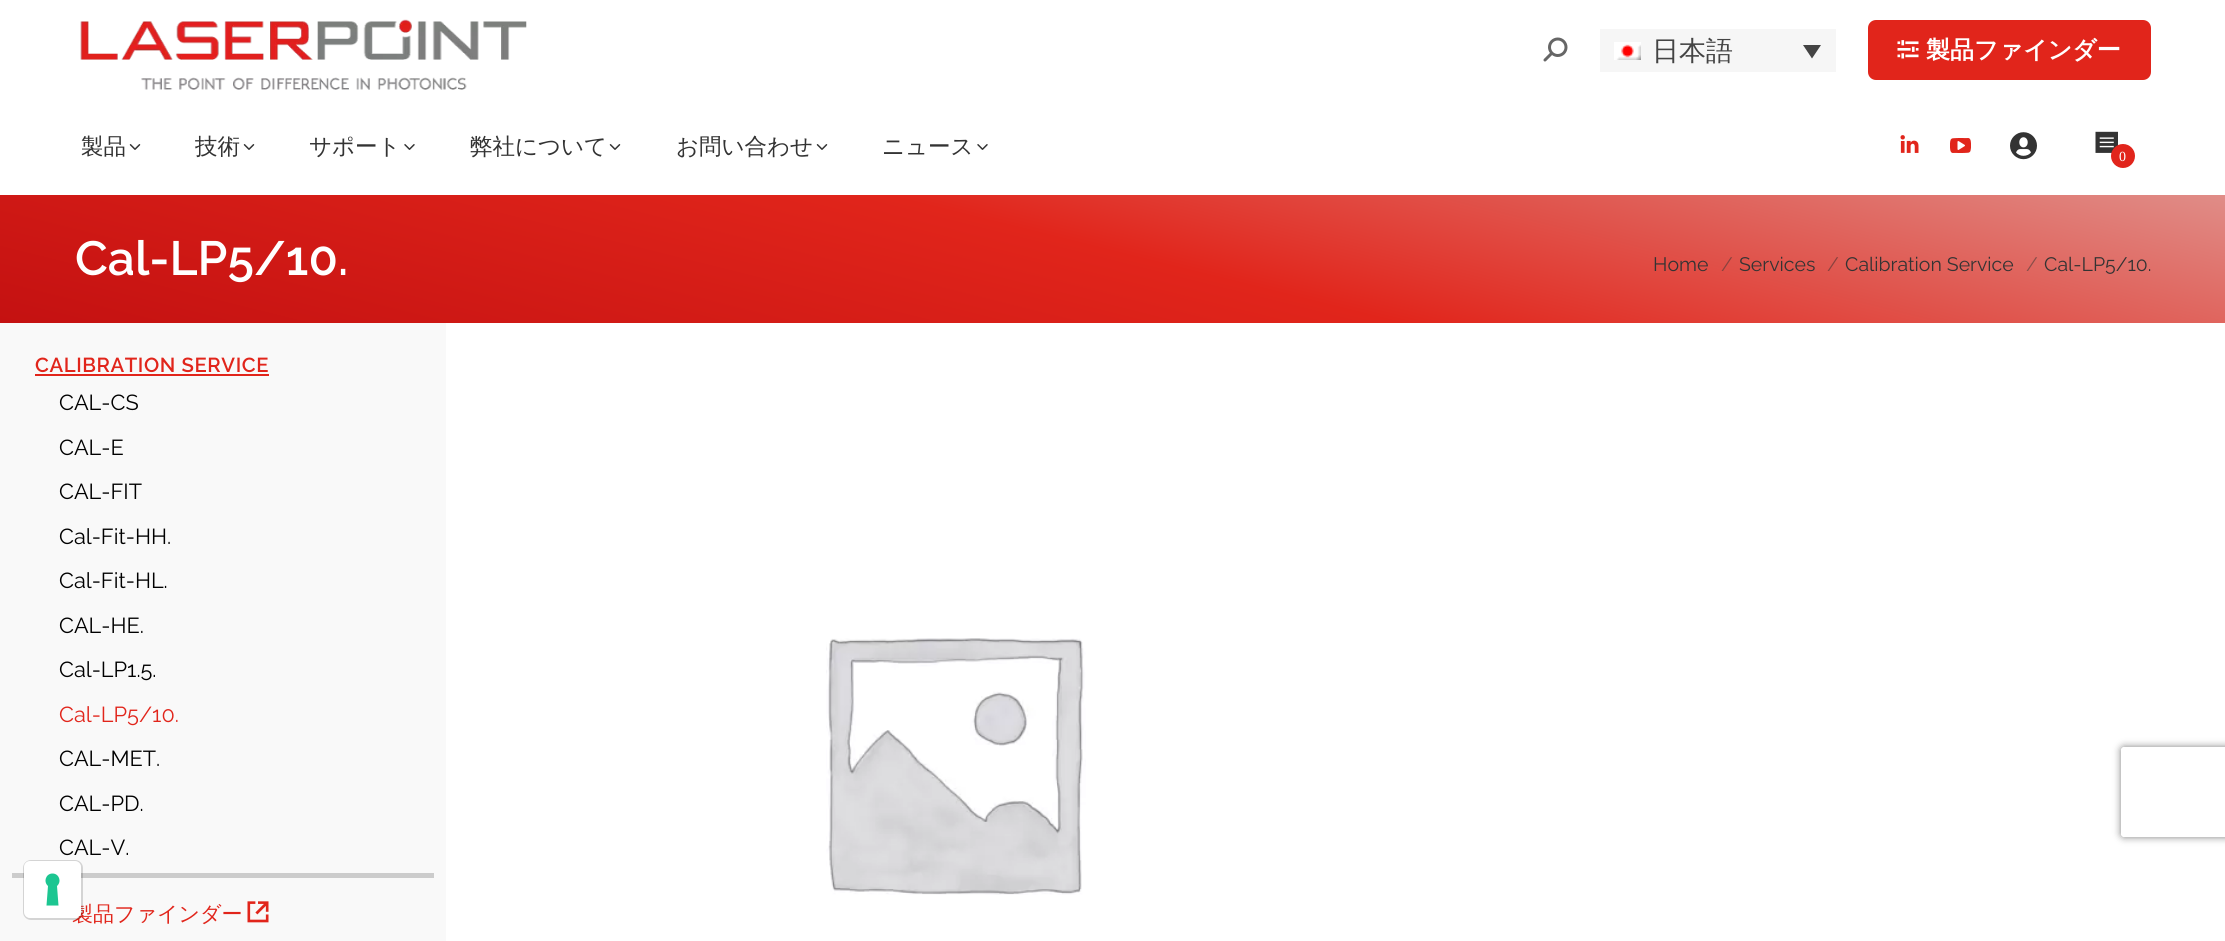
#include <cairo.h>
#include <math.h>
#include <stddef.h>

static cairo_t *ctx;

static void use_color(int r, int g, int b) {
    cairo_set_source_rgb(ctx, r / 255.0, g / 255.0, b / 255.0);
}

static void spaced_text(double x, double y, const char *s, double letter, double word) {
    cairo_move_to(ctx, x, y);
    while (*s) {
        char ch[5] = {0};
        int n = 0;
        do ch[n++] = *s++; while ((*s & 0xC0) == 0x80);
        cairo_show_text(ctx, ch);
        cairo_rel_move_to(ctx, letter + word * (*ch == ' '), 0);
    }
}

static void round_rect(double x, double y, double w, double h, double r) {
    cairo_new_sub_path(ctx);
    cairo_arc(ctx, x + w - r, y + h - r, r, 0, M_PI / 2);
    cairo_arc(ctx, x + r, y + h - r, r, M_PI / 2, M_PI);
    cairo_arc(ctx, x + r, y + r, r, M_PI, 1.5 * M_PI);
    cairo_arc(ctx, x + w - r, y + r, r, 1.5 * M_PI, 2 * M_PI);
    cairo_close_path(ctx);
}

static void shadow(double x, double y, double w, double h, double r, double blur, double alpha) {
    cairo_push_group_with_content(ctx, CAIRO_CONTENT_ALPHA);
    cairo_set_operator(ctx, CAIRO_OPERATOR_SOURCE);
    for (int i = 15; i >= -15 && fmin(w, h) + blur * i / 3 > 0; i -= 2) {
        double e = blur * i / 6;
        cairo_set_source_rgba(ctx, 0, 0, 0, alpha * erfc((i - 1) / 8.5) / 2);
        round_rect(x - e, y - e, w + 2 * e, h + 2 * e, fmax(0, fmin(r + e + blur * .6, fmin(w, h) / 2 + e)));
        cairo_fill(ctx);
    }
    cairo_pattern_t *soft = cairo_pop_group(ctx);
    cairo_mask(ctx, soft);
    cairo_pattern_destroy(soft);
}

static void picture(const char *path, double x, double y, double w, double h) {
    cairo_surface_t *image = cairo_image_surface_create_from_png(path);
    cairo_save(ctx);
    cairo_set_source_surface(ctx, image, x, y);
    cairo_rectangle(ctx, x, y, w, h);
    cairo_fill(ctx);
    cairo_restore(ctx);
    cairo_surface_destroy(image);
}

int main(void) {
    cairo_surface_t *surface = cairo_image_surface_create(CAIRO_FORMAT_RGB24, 2225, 941);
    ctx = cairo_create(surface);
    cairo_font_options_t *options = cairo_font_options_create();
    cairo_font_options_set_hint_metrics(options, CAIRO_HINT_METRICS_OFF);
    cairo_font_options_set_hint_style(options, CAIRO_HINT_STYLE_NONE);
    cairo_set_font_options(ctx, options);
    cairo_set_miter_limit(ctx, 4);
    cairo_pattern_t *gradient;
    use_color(255, 255, 255);
    cairo_paint(ctx);
    picture("img1.png", 80, 19, 447, 71);
    picture("img2.png", 1543, 37, 25, 25);
    use_color(246, 246, 246);
    cairo_rectangle(ctx, 1600, 29, 236, 43);
    cairo_fill(ctx);
    picture("img3.png", 1614, 42, 27, 18);
    cairo_select_font_face(ctx, "WenQuanYi Zen Hei Medium", CAIRO_FONT_SLANT_NORMAL, CAIRO_FONT_WEIGHT_NORMAL);
    cairo_set_font_size(ctx, 27);
    use_color(68, 68, 68);
    cairo_move_to(ctx, 1652, 60);
    cairo_show_text(ctx, "日本語");
    cairo_new_path(ctx);
    cairo_move_to(ctx, 1803, 45);
    cairo_line_to(ctx, 1821, 45);
    cairo_line_to(ctx, 1812, 58.5);
    cairo_close_path(ctx);
    cairo_fill(ctx);
    use_color(225, 37, 27);
    round_rect(1868, 20, 283, 60, 8);
    cairo_fill(ctx);
    picture("img4.png", 1897, 40, 22, 19);
    cairo_select_font_face(ctx, "WenQuanYi Zen Hei", CAIRO_FONT_SLANT_NORMAL, CAIRO_FONT_WEIGHT_BOLD);
    cairo_set_font_size(ctx, 24);
    use_color(255, 255, 255);
    cairo_move_to(ctx, 1926, 58);
    cairo_show_text(ctx, "製品ファインダー");
    cairo_select_font_face(ctx, "WenQuanYi Zen Hei Medium", CAIRO_FONT_SLANT_NORMAL, CAIRO_FONT_WEIGHT_NORMAL);
    cairo_set_font_size(ctx, 22.5);
    use_color(51, 51, 51);
    cairo_move_to(ctx, 81, 154);
    cairo_show_text(ctx, "製品");
    picture("img5.png", 129, 144, 12, 6);
    cairo_move_to(ctx, 195, 154);
    cairo_show_text(ctx, "技術");
    picture("img5.png", 243, 144, 12, 6);
    cairo_move_to(ctx, 309, 154);
    cairo_show_text(ctx, "サポート");
    picture("img6.png", 404, 144, 11, 6);
    cairo_move_to(ctx, 470, 154);
    cairo_show_text(ctx, "弊社について");
    picture("img5.png", 609, 144, 12, 6);
    cairo_move_to(ctx, 676, 154);
    cairo_show_text(ctx, "お問い合わせ");
    picture("img5.png", 816, 144, 12, 6);
    cairo_move_to(ctx, 882, 154);
    cairo_show_text(ctx, "ニュース");
    picture("img6.png", 977, 144, 11, 6);
    picture("img7.png", 1900, 135, 19, 18);
    picture("img8.png", 1950, 138, 21, 15);
    picture("img9.png", 2010, 132, 27, 28);
    picture("img10.png", 2095, 131, 23, 22);
    use_color(225, 37, 28);
    cairo_arc(ctx, 2123, 156, 12, 0, 2 * M_PI);
    cairo_fill(ctx);
    cairo_select_font_face(ctx, "Liberation Serif", CAIRO_FONT_SLANT_NORMAL, CAIRO_FONT_WEIGHT_NORMAL);
    cairo_set_font_size(ctx, 14);
    use_color(255, 255, 255);
    cairo_move_to(ctx, 2119, 161);
    cairo_show_text(ctx, "0");
    gradient = cairo_pattern_create_linear(1193, -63, 1033, 580);
    cairo_pattern_add_color_stop_rgba(gradient, 0, 0.878, 0.553, 0.533, 1);
    cairo_pattern_add_color_stop_rgba(gradient, 0.49, 0.882, 0.145, 0.106, 1);
    cairo_pattern_add_color_stop_rgba(gradient, 1, 0.769, 0.067, 0.067, 1);
    cairo_set_source(ctx, gradient);
    cairo_pattern_destroy(gradient);
    cairo_rectangle(ctx, 0, 195, 2225, 128);
    cairo_fill(ctx);
    cairo_select_font_face(ctx, "Raleway Thin", CAIRO_FONT_SLANT_NORMAL, CAIRO_FONT_WEIGHT_NORMAL);
    cairo_set_font_size(ctx, 48);
    use_color(255, 255, 255);
    cairo_move_to(ctx, 75, 275);
    cairo_show_text(ctx, "Cal-LP5/10.");
    cairo_select_font_face(ctx, "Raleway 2 Thin", CAIRO_FONT_SLANT_NORMAL, CAIRO_FONT_WEIGHT_NORMAL);
    cairo_set_font_size(ctx, 19.5);
    use_color(51, 51, 51);
    cairo_move_to(ctx, 1653, 271);
    cairo_show_text(ctx, "Home");
    use_color(138, 66, 62);
    cairo_move_to(ctx, 1721, 271);
    cairo_show_text(ctx, "/");
    use_color(51, 51, 51);
    cairo_move_to(ctx, 1739, 271);
    cairo_show_text(ctx, "Services");
    use_color(138, 66, 62);
    cairo_move_to(ctx, 1827, 271);
    cairo_show_text(ctx, "/");
    use_color(51, 51, 51);
    cairo_move_to(ctx, 1845, 271);
    cairo_show_text(ctx, "Calibration Service");
    use_color(138, 78, 74);
    cairo_move_to(ctx, 2026, 271);
    cairo_show_text(ctx, "/");
    use_color(51, 51, 51);
    cairo_move_to(ctx, 2044, 271);
    cairo_show_text(ctx, "Cal-LP5/10.");
    use_color(249, 249, 249);
    cairo_rectangle(ctx, 0, 323, 446, 618);
    cairo_fill(ctx);
    cairo_select_font_face(ctx, "Raleway Thin", CAIRO_FONT_SLANT_NORMAL, CAIRO_FONT_WEIGHT_NORMAL);
    cairo_set_font_size(ctx, 20.25);
    use_color(225, 37, 27);
    spaced_text(35, 372, "CALIBRATION SERVICE", 0.6, 0);
    cairo_rectangle(ctx, 35, 374, 234, 2);
    cairo_fill(ctx);
    cairo_select_font_face(ctx, "Raleway 2 Thin", CAIRO_FONT_SLANT_NORMAL, CAIRO_FONT_WEIGHT_NORMAL);
    cairo_set_font_size(ctx, 21.75);
    use_color(0, 0, 0);
    cairo_move_to(ctx, 59, 410);
    cairo_show_text(ctx, "CAL-CS");
    cairo_move_to(ctx, 59, 455);
    cairo_show_text(ctx, "CAL-E");
    cairo_move_to(ctx, 59, 499);
    cairo_show_text(ctx, "CAL-FIT");
    cairo_move_to(ctx, 59, 544);
    cairo_show_text(ctx, "Cal-Fit-HH.");
    cairo_move_to(ctx, 59, 588);
    cairo_show_text(ctx, "Cal-Fit-HL.");
    cairo_move_to(ctx, 59, 633);
    cairo_show_text(ctx, "CAL-HE.");
    cairo_move_to(ctx, 59, 677);
    cairo_show_text(ctx, "Cal-LP1.5.");
    use_color(225, 37, 27);
    cairo_move_to(ctx, 59, 722);
    cairo_show_text(ctx, "Cal-LP5/10.");
    use_color(0, 0, 0);
    cairo_move_to(ctx, 59, 766);
    cairo_show_text(ctx, "CAL-MET.");
    cairo_move_to(ctx, 59, 811);
    cairo_show_text(ctx, "CAL-PD.");
    cairo_move_to(ctx, 59, 855);
    cairo_show_text(ctx, "CAL-V.");
    use_color(204, 204, 204);
    cairo_rectangle(ctx, 12, 873, 422, 5);
    cairo_fill(ctx);
    cairo_select_font_face(ctx, "WenQuanYi Zen Hei Medium", CAIRO_FONT_SLANT_NORMAL, CAIRO_FONT_WEIGHT_NORMAL);
    cairo_set_font_size(ctx, 21);
    use_color(225, 37, 27);
    cairo_move_to(ctx, 72, 921);
    cairo_show_text(ctx, "製品ファインダー");
    picture("img11.png", 247, 901, 22, 22);
    picture("img12.png", 826, 638, 260, 257);
    cairo_save(ctx);
    cairo_set_fill_rule(ctx, CAIRO_FILL_RULE_EVEN_ODD);
    cairo_new_path(ctx);
    cairo_move_to(ctx, 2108, 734);
    cairo_line_to(ctx, 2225, 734);
    cairo_line_to(ctx, 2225, 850);
    cairo_line_to(ctx, 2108, 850);
    cairo_close_path(ctx);
    cairo_move_to(ctx, 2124, 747);
    cairo_line_to(ctx, 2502, 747);
    cairo_curve_to(ctx, 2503.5, 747, 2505, 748.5, 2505, 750);
    cairo_line_to(ctx, 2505, 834);
    cairo_curve_to(ctx, 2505, 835.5, 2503.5, 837, 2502, 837);
    cairo_line_to(ctx, 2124, 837);
    cairo_curve_to(ctx, 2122.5, 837, 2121, 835.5, 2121, 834);
    cairo_line_to(ctx, 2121, 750);
    cairo_curve_to(ctx, 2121, 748.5, 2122.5, 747, 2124, 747);
    cairo_close_path(ctx);
    cairo_clip(ctx);
    use_color(128, 128, 128);
    shadow(2121, 747, 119, 90, 3, 4, 1);
    cairo_restore(ctx);
    round_rect(24, 861, 58, 58, 7);
    cairo_set_source_rgba(ctx, 0, 0, 0, 0.15);
    cairo_stroke(ctx);
    use_color(255, 255, 255);
    round_rect(24, 861, 57, 57, 6);
    cairo_fill(ctx);
    use_color(28, 198, 145);
    cairo_set_fill_rule(ctx, CAIRO_FILL_RULE_EVEN_ODD);
    cairo_new_path(ctx);
    cairo_move_to(ctx, 52.5, 873.5);
    cairo_curve_to(ctx, 59, 873.5, 62, 881.5, 57, 886);
    cairo_line_to(ctx, 58.5, 905.5);
    cairo_line_to(ctx, 46.5, 905.5);
    cairo_line_to(ctx, 48, 886);
    cairo_curve_to(ctx, 43, 881.5, 46, 873.5, 52.5, 873.5);
    cairo_close_path(ctx);
    cairo_fill(ctx);
    cairo_surface_write_to_png(surface, "result.png");
    cairo_font_options_destroy(options);
    cairo_destroy(ctx);
    cairo_surface_destroy(surface);
    return 0;
}
